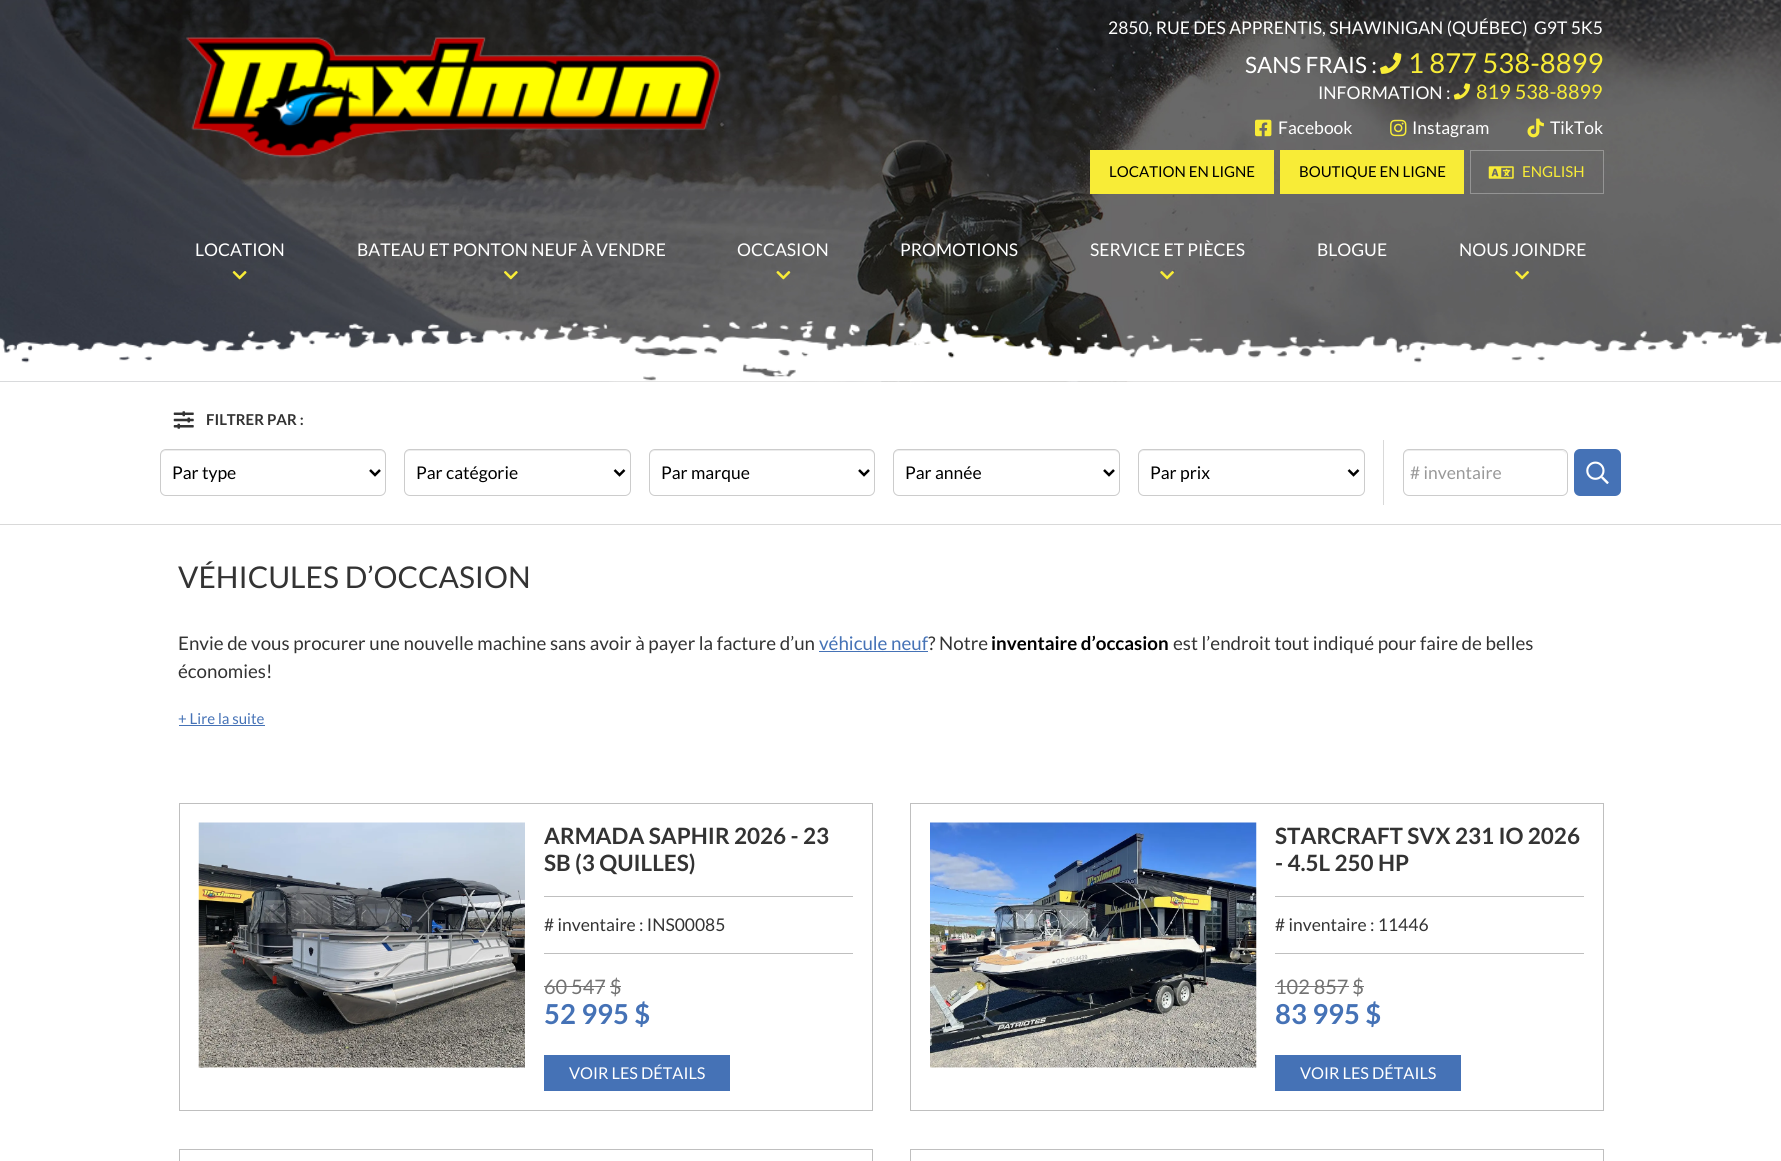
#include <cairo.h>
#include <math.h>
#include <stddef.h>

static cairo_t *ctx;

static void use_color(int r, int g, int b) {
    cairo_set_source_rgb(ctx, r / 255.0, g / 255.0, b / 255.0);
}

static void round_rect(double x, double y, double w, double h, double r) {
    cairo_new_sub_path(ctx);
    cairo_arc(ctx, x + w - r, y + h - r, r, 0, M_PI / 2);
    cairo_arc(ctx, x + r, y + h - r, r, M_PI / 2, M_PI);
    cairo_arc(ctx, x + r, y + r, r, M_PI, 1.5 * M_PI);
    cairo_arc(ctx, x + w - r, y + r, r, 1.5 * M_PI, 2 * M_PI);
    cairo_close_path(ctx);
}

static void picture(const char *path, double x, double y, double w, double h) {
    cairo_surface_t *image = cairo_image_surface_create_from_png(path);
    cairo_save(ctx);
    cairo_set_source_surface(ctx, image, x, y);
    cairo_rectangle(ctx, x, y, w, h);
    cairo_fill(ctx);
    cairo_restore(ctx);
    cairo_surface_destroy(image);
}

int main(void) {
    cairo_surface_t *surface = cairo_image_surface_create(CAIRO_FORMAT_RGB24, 1781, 1161);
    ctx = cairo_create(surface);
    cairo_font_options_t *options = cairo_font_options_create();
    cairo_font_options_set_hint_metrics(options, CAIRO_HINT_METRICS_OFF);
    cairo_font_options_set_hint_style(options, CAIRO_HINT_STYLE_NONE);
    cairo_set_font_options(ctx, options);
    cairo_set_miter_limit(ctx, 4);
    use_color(255, 255, 255);
    cairo_paint(ctx);
    picture("img1.png", 0, 0, 1781, 382);
    picture("img2.png", 186, 37, 536, 121);
    cairo_select_font_face(ctx, "Lato", CAIRO_FONT_SLANT_NORMAL, CAIRO_FONT_WEIGHT_NORMAL);
    cairo_set_font_size(ctx, 17.5);
    use_color(255, 255, 255);
    cairo_move_to(ctx, 1108, 34);
    cairo_show_text(ctx, "2850, RUE DES APPRENTIS, SHAWINIGAN (QUÉBEC)");
    cairo_move_to(ctx, 1534, 34);
    cairo_show_text(ctx, "G9T 5K5");
    cairo_set_font_size(ctx, 22.5);
    cairo_move_to(ctx, 1245, 73);
    cairo_show_text(ctx, "SANS FRAIS :");
    picture("img3.png", 1380, 52, 22, 22);
    cairo_set_font_size(ctx, 27.5);
    use_color(248, 236, 55);
    cairo_move_to(ctx, 1408, 73);
    cairo_show_text(ctx, "1 877 538-8899");
    cairo_set_font_size(ctx, 17.5);
    use_color(255, 255, 255);
    cairo_move_to(ctx, 1318, 99);
    cairo_show_text(ctx, "INFORMATION :");
    picture("img4.png", 1453, 83, 17, 17);
    cairo_set_font_size(ctx, 20);
    use_color(248, 236, 55);
    cairo_move_to(ctx, 1476, 99);
    cairo_show_text(ctx, "819 538-8899");
    picture("img5.png", 1255, 119, 17, 18);
    cairo_set_font_size(ctx, 17.5);
    use_color(255, 255, 255);
    cairo_move_to(ctx, 1278, 134);
    cairo_show_text(ctx, "Facebook");
    picture("img6.png", 1390, 119, 17, 18);
    cairo_move_to(ctx, 1412, 134);
    cairo_show_text(ctx, "Instagram");
    picture("img7.png", 1527, 118, 17, 20);
    cairo_move_to(ctx, 1550, 134);
    cairo_show_text(ctx, "TikTok");
    use_color(248, 236, 55);
    cairo_rectangle(ctx, 1090, 150, 184, 44);
    cairo_fill(ctx);
    cairo_set_font_size(ctx, 15);
    use_color(0, 0, 0);
    cairo_move_to(ctx, 1109, 177);
    cairo_show_text(ctx, "LOCATION EN LIGNE");
    use_color(248, 236, 55);
    cairo_rectangle(ctx, 1280, 150, 184, 44);
    cairo_fill(ctx);
    use_color(0, 0, 0);
    cairo_move_to(ctx, 1299, 177);
    cairo_show_text(ctx, "BOUTIQUE EN LIGNE");
    cairo_rectangle(ctx, 1470.5, 150.5, 133, 43);
    cairo_set_source_rgba(ctx, 1, 1, 1, 0.3);
    cairo_set_line_width(ctx, 1);
    cairo_stroke(ctx);
    picture("img8.png", 1488, 166, 26, 13);
    use_color(248, 236, 55);
    cairo_move_to(ctx, 1522, 177);
    cairo_show_text(ctx, "ENGLISH");
    cairo_set_font_size(ctx, 17.5);
    use_color(255, 255, 255);
    cairo_move_to(ctx, 195, 256);
    cairo_show_text(ctx, "LOCATION");
    picture("img9.png", 232, 271, 15, 9);
    cairo_move_to(ctx, 357, 256);
    cairo_show_text(ctx, "BATEAU ET PONTON NEUF À VENDRE");
    picture("img10.png", 504, 271, 14, 9);
    cairo_move_to(ctx, 737, 256);
    cairo_show_text(ctx, "OCCASION");
    picture("img11.png", 776, 271, 15, 9);
    cairo_move_to(ctx, 900, 256);
    cairo_show_text(ctx, "PROMOTIONS");
    cairo_move_to(ctx, 1090, 256);
    cairo_show_text(ctx, "SERVICE ET PIÈCES");
    picture("img12.png", 1160, 271, 14, 9);
    cairo_move_to(ctx, 1317, 256);
    cairo_show_text(ctx, "BLOGUE");
    cairo_move_to(ctx, 1459, 256);
    cairo_show_text(ctx, "NOUS JOINDRE");
    picture("img13.png", 1515, 271, 14, 9);
    picture("img14.png", 0, 321, 1781, 61);
    use_color(217, 217, 217);
    cairo_rectangle(ctx, 0, 524, 1781, 1);
    cairo_fill(ctx);
    picture("img15.png", 173, 411, 21, 18);
    cairo_select_font_face(ctx, "Lato", CAIRO_FONT_SLANT_NORMAL, CAIRO_FONT_WEIGHT_BOLD);
    cairo_set_font_size(ctx, 15);
    use_color(51, 51, 51);
    cairo_move_to(ctx, 206, 425);
    cairo_show_text(ctx, "FILTRER PAR :");
    use_color(236, 236, 236);
    cairo_new_path(ctx);
    cairo_move_to(ctx, 166, 451);
    cairo_line_to(ctx, 380, 451);
    cairo_curve_to(ctx, 383, 451, 385, 453, 385, 456);
    cairo_line_to(ctx, 385, 455);
    cairo_curve_to(ctx, 385, 452, 383, 450, 380, 450);
    cairo_line_to(ctx, 166, 450);
    cairo_curve_to(ctx, 163, 450, 161, 452, 161, 455);
    cairo_line_to(ctx, 161, 456);
    cairo_curve_to(ctx, 161, 453, 163, 451, 166, 451);
    cairo_close_path(ctx);
    cairo_fill(ctx);
    round_rect(160.5, 449.5, 225, 46, 5.5);
    use_color(204, 204, 204);
    cairo_stroke(ctx);
    cairo_new_path(ctx);
    cairo_move_to(ctx, 370, 470);
    cairo_line_to(ctx, 375, 475);
    cairo_line_to(ctx, 380, 470);
    use_color(0, 0, 0);
    cairo_set_line_width(ctx, 2.5);
    cairo_stroke(ctx);
    cairo_select_font_face(ctx, "Lato", CAIRO_FONT_SLANT_NORMAL, CAIRO_FONT_WEIGHT_NORMAL);
    cairo_set_font_size(ctx, 17.5);
    cairo_move_to(ctx, 172, 479);
    cairo_show_text(ctx, "Par type");
    use_color(236, 236, 236);
    cairo_new_path(ctx);
    cairo_move_to(ctx, 410, 451);
    cairo_line_to(ctx, 625, 451);
    cairo_curve_to(ctx, 628, 451, 630, 453, 630, 456);
    cairo_line_to(ctx, 630, 455);
    cairo_curve_to(ctx, 630, 452, 628, 450, 625, 450);
    cairo_line_to(ctx, 410, 450);
    cairo_curve_to(ctx, 407, 450, 405, 452, 405, 455);
    cairo_line_to(ctx, 405, 456);
    cairo_curve_to(ctx, 405, 453, 407, 451, 410, 451);
    cairo_close_path(ctx);
    cairo_fill(ctx);
    round_rect(404.5, 449.5, 226, 46, 5.5);
    use_color(204, 204, 204);
    cairo_set_line_width(ctx, 1);
    cairo_stroke(ctx);
    cairo_new_path(ctx);
    cairo_move_to(ctx, 614.5, 470);
    cairo_line_to(ctx, 619.5, 475);
    cairo_line_to(ctx, 624.5, 470);
    use_color(0, 0, 0);
    cairo_set_line_width(ctx, 2.5);
    cairo_stroke(ctx);
    cairo_move_to(ctx, 416, 479);
    cairo_show_text(ctx, "Par catégorie");
    use_color(236, 236, 236);
    cairo_new_path(ctx);
    cairo_move_to(ctx, 655, 451);
    cairo_line_to(ctx, 869, 451);
    cairo_curve_to(ctx, 872, 451, 874, 453, 874, 456);
    cairo_line_to(ctx, 874, 455);
    cairo_curve_to(ctx, 874, 452, 872, 450, 869, 450);
    cairo_line_to(ctx, 655, 450);
    cairo_curve_to(ctx, 652, 450, 650, 452, 650, 455);
    cairo_line_to(ctx, 650, 456);
    cairo_curve_to(ctx, 650, 453, 652, 451, 655, 451);
    cairo_close_path(ctx);
    cairo_fill(ctx);
    round_rect(649.5, 449.5, 225, 46, 5.5);
    use_color(204, 204, 204);
    cairo_set_line_width(ctx, 1);
    cairo_stroke(ctx);
    cairo_new_path(ctx);
    cairo_move_to(ctx, 859, 470);
    cairo_line_to(ctx, 864, 475);
    cairo_line_to(ctx, 869, 470);
    use_color(0, 0, 0);
    cairo_set_line_width(ctx, 2.5);
    cairo_stroke(ctx);
    cairo_move_to(ctx, 661, 479);
    cairo_show_text(ctx, "Par marque");
    use_color(236, 236, 236);
    cairo_new_path(ctx);
    cairo_move_to(ctx, 899, 451);
    cairo_line_to(ctx, 1114, 451);
    cairo_curve_to(ctx, 1117, 451, 1119, 453, 1119, 456);
    cairo_line_to(ctx, 1119, 455);
    cairo_curve_to(ctx, 1119, 452, 1117, 450, 1114, 450);
    cairo_line_to(ctx, 899, 450);
    cairo_curve_to(ctx, 896, 450, 894, 452, 894, 455);
    cairo_line_to(ctx, 894, 456);
    cairo_curve_to(ctx, 894, 453, 896, 451, 899, 451);
    cairo_close_path(ctx);
    cairo_fill(ctx);
    round_rect(893.5, 449.5, 226, 46, 5.5);
    use_color(204, 204, 204);
    cairo_set_line_width(ctx, 1);
    cairo_stroke(ctx);
    cairo_new_path(ctx);
    cairo_move_to(ctx, 1104, 470);
    cairo_line_to(ctx, 1109, 475);
    cairo_line_to(ctx, 1114, 470);
    use_color(0, 0, 0);
    cairo_set_line_width(ctx, 2.5);
    cairo_stroke(ctx);
    cairo_move_to(ctx, 905, 479);
    cairo_show_text(ctx, "Par année");
    use_color(236, 236, 236);
    cairo_new_path(ctx);
    cairo_move_to(ctx, 1144, 451);
    cairo_line_to(ctx, 1359, 451);
    cairo_curve_to(ctx, 1362, 451, 1364, 453, 1364, 456);
    cairo_line_to(ctx, 1364, 455);
    cairo_curve_to(ctx, 1364, 452, 1362, 450, 1359, 450);
    cairo_line_to(ctx, 1144, 450);
    cairo_curve_to(ctx, 1141, 450, 1139, 452, 1139, 455);
    cairo_line_to(ctx, 1139, 456);
    cairo_curve_to(ctx, 1139, 453, 1141, 451, 1144, 451);
    cairo_close_path(ctx);
    cairo_fill(ctx);
    round_rect(1138.5, 449.5, 226, 46, 5.5);
    use_color(204, 204, 204);
    cairo_set_line_width(ctx, 1);
    cairo_stroke(ctx);
    cairo_new_path(ctx);
    cairo_move_to(ctx, 1348.5, 470);
    cairo_line_to(ctx, 1353.5, 475);
    cairo_line_to(ctx, 1358.5, 470);
    use_color(0, 0, 0);
    cairo_set_line_width(ctx, 2.5);
    cairo_stroke(ctx);
    cairo_move_to(ctx, 1150, 479);
    cairo_show_text(ctx, "Par prix");
    use_color(217, 217, 217);
    cairo_rectangle(ctx, 1383, 440, 1, 65);
    cairo_fill(ctx);
    use_color(236, 236, 236);
    cairo_new_path(ctx);
    cairo_move_to(ctx, 1409, 451);
    cairo_line_to(ctx, 1561, 451);
    cairo_curve_to(ctx, 1564, 451, 1566, 453, 1566, 456);
    cairo_line_to(ctx, 1566, 455);
    cairo_curve_to(ctx, 1566, 452, 1564, 450, 1561, 450);
    cairo_line_to(ctx, 1409, 450);
    cairo_curve_to(ctx, 1406, 450, 1404, 452, 1404, 455);
    cairo_line_to(ctx, 1404, 456);
    cairo_curve_to(ctx, 1404, 453, 1406, 451, 1409, 451);
    cairo_close_path(ctx);
    cairo_fill(ctx);
    round_rect(1403.5, 449.5, 164, 46, 5.5);
    use_color(204, 204, 204);
    cairo_set_line_width(ctx, 1);
    cairo_stroke(ctx);
    use_color(153, 153, 153);
    cairo_move_to(ctx, 1410, 479);
    cairo_show_text(ctx, "# inventaire");
    use_color(69, 114, 182);
    round_rect(1574, 449, 47, 47, 6);
    cairo_fill(ctx);
    picture("img16.png", 1586, 461, 23, 23);
    cairo_set_font_size(ctx, 30);
    use_color(51, 51, 51);
    cairo_move_to(ctx, 178, 588);
    cairo_show_text(ctx, "VÉHICULES D’OCCASION");
    cairo_set_font_size(ctx, 18.75);
    cairo_move_to(ctx, 178, 650);
    cairo_show_text(ctx, "Envie de vous procurer une nouvelle machine sans avoir à payer la facture d’un");
    use_color(69, 114, 182);
    cairo_move_to(ctx, 819, 650);
    cairo_show_text(ctx, "véhicule neuf");
    cairo_rectangle(ctx, 819, 651, 109, 1);
    cairo_fill(ctx);
    use_color(51, 51, 51);
    cairo_move_to(ctx, 928, 650);
    cairo_show_text(ctx, "? Notre");
    cairo_select_font_face(ctx, "Lato", CAIRO_FONT_SLANT_NORMAL, CAIRO_FONT_WEIGHT_BOLD);
    use_color(0, 0, 0);
    cairo_move_to(ctx, 991, 650);
    cairo_show_text(ctx, "inventaire d’occasion");
    cairo_select_font_face(ctx, "Lato", CAIRO_FONT_SLANT_NORMAL, CAIRO_FONT_WEIGHT_NORMAL);
    use_color(51, 51, 51);
    cairo_move_to(ctx, 1173, 650);
    cairo_show_text(ctx, "est l’endroit tout indiqué pour faire de belles");
    cairo_move_to(ctx, 178, 678);
    cairo_show_text(ctx, "économies!");
    cairo_set_font_size(ctx, 15);
    use_color(69, 114, 182);
    cairo_move_to(ctx, 178, 724);
    cairo_show_text(ctx, "+ Lire la suite");
    cairo_rectangle(ctx, 179, 725, 86, 1);
    cairo_fill(ctx);
    cairo_rectangle(ctx, 179.5, 803.5, 693, 307);
    use_color(191, 191, 191);
    cairo_stroke(ctx);
    picture("img17.png", 198, 822, 327, 246);
    cairo_select_font_face(ctx, "Lato", CAIRO_FONT_SLANT_NORMAL, CAIRO_FONT_WEIGHT_BOLD);
    cairo_set_font_size(ctx, 22.5);
    use_color(51, 51, 51);
    cairo_move_to(ctx, 544, 844);
    cairo_show_text(ctx, "ARMADA SAPHIR 2026 - 23");
    cairo_move_to(ctx, 544, 871);
    cairo_show_text(ctx, "SB (3 QUILLES)");
    use_color(191, 191, 191);
    cairo_rectangle(ctx, 544, 896, 309, 1);
    cairo_fill(ctx);
    cairo_select_font_face(ctx, "Lato", CAIRO_FONT_SLANT_NORMAL, CAIRO_FONT_WEIGHT_NORMAL);
    cairo_set_font_size(ctx, 17.5);
    use_color(51, 51, 51);
    cairo_move_to(ctx, 544, 931);
    cairo_show_text(ctx, "# inventaire : INS00085");
    use_color(191, 191, 191);
    cairo_rectangle(ctx, 544, 953, 309, 1);
    cairo_fill(ctx);
    cairo_set_font_size(ctx, 20);
    use_color(115, 115, 115);
    cairo_move_to(ctx, 544, 994);
    cairo_show_text(ctx, "60 547 $");
    cairo_rectangle(ctx, 544, 986, 61, 1);
    cairo_fill(ctx);
    cairo_rectangle(ctx, 610, 986, 11, 1);
    cairo_fill(ctx);
    cairo_select_font_face(ctx, "Lato", CAIRO_FONT_SLANT_NORMAL, CAIRO_FONT_WEIGHT_BOLD);
    cairo_set_font_size(ctx, 27.5);
    use_color(69, 114, 182);
    cairo_move_to(ctx, 544, 1024);
    cairo_show_text(ctx, "52 995 $");
    cairo_rectangle(ctx, 544, 1055, 186, 36);
    cairo_fill(ctx);
    cairo_select_font_face(ctx, "Lato", CAIRO_FONT_SLANT_NORMAL, CAIRO_FONT_WEIGHT_NORMAL);
    cairo_set_font_size(ctx, 16.25);
    use_color(255, 255, 255);
    cairo_move_to(ctx, 569, 1079);
    cairo_show_text(ctx, "VOIR LES DÉTAILS");
    cairo_rectangle(ctx, 910.5, 803.5, 693, 307);
    use_color(191, 191, 191);
    cairo_stroke(ctx);
    picture("img18.png", 930, 822, 327, 246);
    cairo_select_font_face(ctx, "Lato", CAIRO_FONT_SLANT_NORMAL, CAIRO_FONT_WEIGHT_BOLD);
    cairo_set_font_size(ctx, 22.5);
    use_color(51, 51, 51);
    cairo_move_to(ctx, 1275, 844);
    cairo_show_text(ctx, "STARCRAFT SVX 231 IO 2026");
    cairo_move_to(ctx, 1275, 871);
    cairo_show_text(ctx, "- 4.5L 250 HP");
    use_color(191, 191, 191);
    cairo_rectangle(ctx, 1275, 896, 309, 1);
    cairo_fill(ctx);
    cairo_select_font_face(ctx, "Lato", CAIRO_FONT_SLANT_NORMAL, CAIRO_FONT_WEIGHT_NORMAL);
    cairo_set_font_size(ctx, 17.5);
    use_color(51, 51, 51);
    cairo_move_to(ctx, 1275, 931);
    cairo_show_text(ctx, "# inventaire : 11446");
    use_color(191, 191, 191);
    cairo_rectangle(ctx, 1275, 953, 309, 1);
    cairo_fill(ctx);
    cairo_set_font_size(ctx, 20);
    use_color(115, 115, 115);
    cairo_move_to(ctx, 1275, 994);
    cairo_show_text(ctx, "102 857 $");
    cairo_rectangle(ctx, 1275, 986, 74, 1);
    cairo_fill(ctx);
    cairo_rectangle(ctx, 1353, 986, 11, 1);
    cairo_fill(ctx);
    cairo_select_font_face(ctx, "Lato", CAIRO_FONT_SLANT_NORMAL, CAIRO_FONT_WEIGHT_BOLD);
    cairo_set_font_size(ctx, 27.5);
    use_color(69, 114, 182);
    cairo_move_to(ctx, 1275, 1024);
    cairo_show_text(ctx, "83 995 $");
    cairo_rectangle(ctx, 1275, 1055, 186, 36);
    cairo_fill(ctx);
    cairo_select_font_face(ctx, "Lato", CAIRO_FONT_SLANT_NORMAL, CAIRO_FONT_WEIGHT_NORMAL);
    cairo_set_font_size(ctx, 16.25);
    use_color(255, 255, 255);
    cairo_move_to(ctx, 1300, 1079);
    cairo_show_text(ctx, "VOIR LES DÉTAILS");
    cairo_rectangle(ctx, 179.5, 1149.5, 693, 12);
    use_color(191, 191, 191);
    cairo_stroke(ctx);
    cairo_rectangle(ctx, 910.5, 1149.5, 693, 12);
    cairo_stroke(ctx);
    cairo_surface_write_to_png(surface, "result.png");
    cairo_font_options_destroy(options);
    cairo_destroy(ctx);
    cairo_surface_destroy(surface);
    return 0;
}
